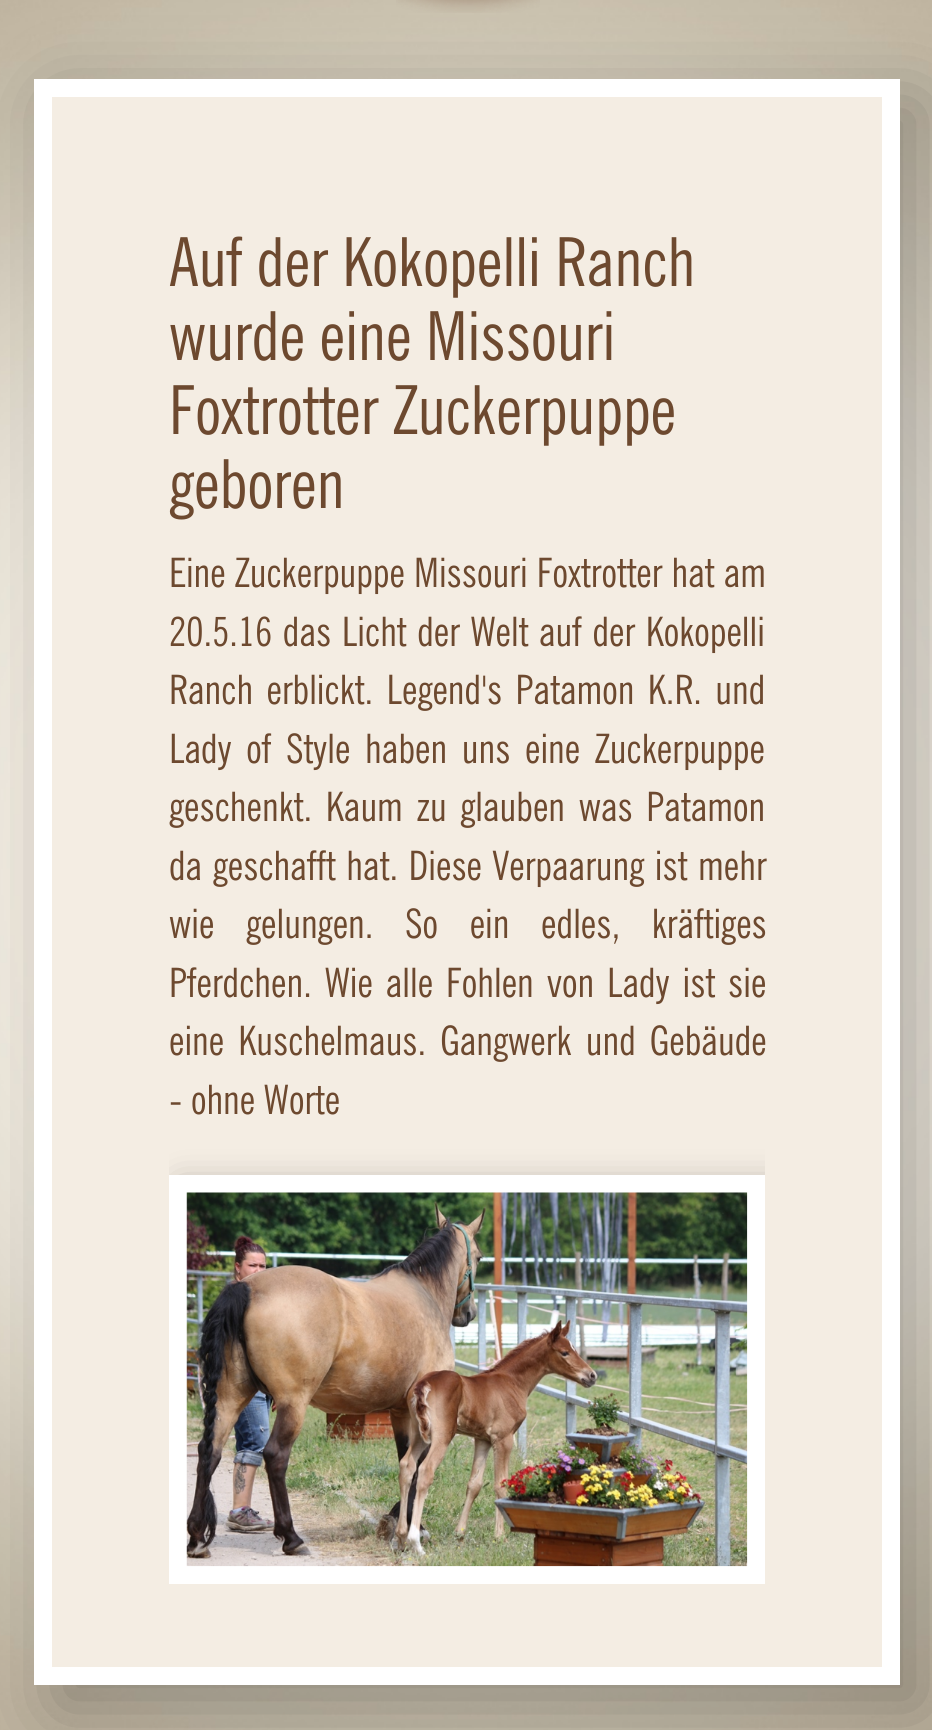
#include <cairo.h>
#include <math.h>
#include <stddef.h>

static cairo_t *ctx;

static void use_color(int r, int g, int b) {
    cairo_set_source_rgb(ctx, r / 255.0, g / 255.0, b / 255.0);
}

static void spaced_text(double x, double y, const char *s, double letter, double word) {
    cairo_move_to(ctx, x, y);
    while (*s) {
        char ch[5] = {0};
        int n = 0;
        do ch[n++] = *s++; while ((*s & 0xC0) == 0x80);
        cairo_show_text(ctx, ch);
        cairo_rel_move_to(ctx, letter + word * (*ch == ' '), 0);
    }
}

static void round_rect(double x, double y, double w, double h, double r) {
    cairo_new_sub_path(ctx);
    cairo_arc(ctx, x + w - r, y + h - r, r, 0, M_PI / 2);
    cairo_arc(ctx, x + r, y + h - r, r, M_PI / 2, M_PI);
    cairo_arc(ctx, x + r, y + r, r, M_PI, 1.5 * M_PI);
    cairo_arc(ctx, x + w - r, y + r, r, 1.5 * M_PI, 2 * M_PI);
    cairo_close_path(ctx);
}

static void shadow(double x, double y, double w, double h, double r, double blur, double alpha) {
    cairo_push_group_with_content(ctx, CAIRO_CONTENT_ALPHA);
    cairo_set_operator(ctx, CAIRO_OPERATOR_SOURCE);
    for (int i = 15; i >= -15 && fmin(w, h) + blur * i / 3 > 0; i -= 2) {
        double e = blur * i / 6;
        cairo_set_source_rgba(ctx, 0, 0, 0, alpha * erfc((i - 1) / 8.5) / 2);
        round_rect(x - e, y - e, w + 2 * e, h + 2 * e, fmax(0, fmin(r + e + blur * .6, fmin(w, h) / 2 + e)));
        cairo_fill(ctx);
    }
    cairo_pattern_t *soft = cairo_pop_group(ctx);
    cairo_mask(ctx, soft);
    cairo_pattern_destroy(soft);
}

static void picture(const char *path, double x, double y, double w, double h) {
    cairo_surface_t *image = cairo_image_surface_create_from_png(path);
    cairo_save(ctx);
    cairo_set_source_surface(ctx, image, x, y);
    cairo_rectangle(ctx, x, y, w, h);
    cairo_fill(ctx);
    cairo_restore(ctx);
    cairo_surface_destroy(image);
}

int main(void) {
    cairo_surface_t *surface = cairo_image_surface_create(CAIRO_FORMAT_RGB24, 932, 1730);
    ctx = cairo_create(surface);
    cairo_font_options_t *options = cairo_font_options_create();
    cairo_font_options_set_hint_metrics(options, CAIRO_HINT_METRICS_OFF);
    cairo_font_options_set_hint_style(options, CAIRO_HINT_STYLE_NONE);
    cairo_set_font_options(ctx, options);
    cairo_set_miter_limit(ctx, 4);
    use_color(255, 255, 255);
    cairo_paint(ctx);
    picture("img1.png", 0, 0, 932, 1730);
    use_color(0, 0, 0);
    shadow(56, 101, 867, 1607, 0, 39.5, 0.3);
    picture("img2.png", 396, 0, 144, 13);
    use_color(244, 237, 227);
    cairo_rectangle(ctx, 43, 88, 848, 1588);
    cairo_fill_preserve(ctx);
    use_color(255, 255, 255);
    cairo_set_line_width(ctx, 18);
    cairo_stroke(ctx);
    cairo_select_font_face(ctx, "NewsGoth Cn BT", CAIRO_FONT_SLANT_NORMAL, CAIRO_FONT_WEIGHT_NORMAL);
    cairo_set_font_size(ctx, 67.5);
    use_color(109, 73, 47);
    cairo_move_to(ctx, 169, 286);
    cairo_show_text(ctx, "Auf der Kokopelli Ranch");
    cairo_move_to(ctx, 169, 360);
    cairo_show_text(ctx, "wurde eine Missouri");
    cairo_move_to(ctx, 169, 434);
    cairo_show_text(ctx, "Foxtrotter Zuckerpuppe");
    cairo_move_to(ctx, 169, 508);
    cairo_show_text(ctx, "geboren");
    cairo_set_font_size(ctx, 40.5);
    spaced_text(169, 587, "Eine Zuckerpuppe Missouri Foxtrotter hat am", 0, 0.5);
    spaced_text(169, 646, "20.5.16 das Licht der Welt auf der Kokopelli", 0, 2);
    spaced_text(169, 704, "Ranch erblickt. Legend's Patamon K.R. und", 0, 4.75);
    spaced_text(169, 763, "Lady of Style haben uns eine Zuckerpuppe", 0, 6);
    spaced_text(169, 821, "geschenkt. Kaum zu glauben was Patamon", 0, 5);
    spaced_text(169, 880, "da geschafft hat. Diese Verpaarung ist mehr", 0, 2);
    spaced_text(169, 938, "wie gelungen. So ein edles, kräftiges", 0, 23);
    spaced_text(169, 997, "Pferdchen. Wie alle Fohlen von Lady ist sie", 0, 4.25);
    spaced_text(169, 1055, "eine Kuschelmaus. Gangwerk und Gebäude", 0, 5.5);
    cairo_move_to(ctx, 169, 1114);
    cairo_show_text(ctx, "- ohne Worte");
    cairo_save(ctx);
    cairo_rectangle(ctx, 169, 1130, 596, 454);
    cairo_clip(ctx);
    use_color(0, 0, 0);
    shadow(180, 1186, 596, 409, 0, 17, 0.3);
    cairo_restore(ctx);
    cairo_rectangle(ctx, 178, 1184, 578, 391);
    use_color(255, 255, 255);
    cairo_stroke(ctx);
    picture("img3.png", 186, 1192, 562, 375);
    cairo_surface_write_to_png(surface, "result.png");
    cairo_font_options_destroy(options);
    cairo_destroy(ctx);
    cairo_surface_destroy(surface);
    return 0;
}
